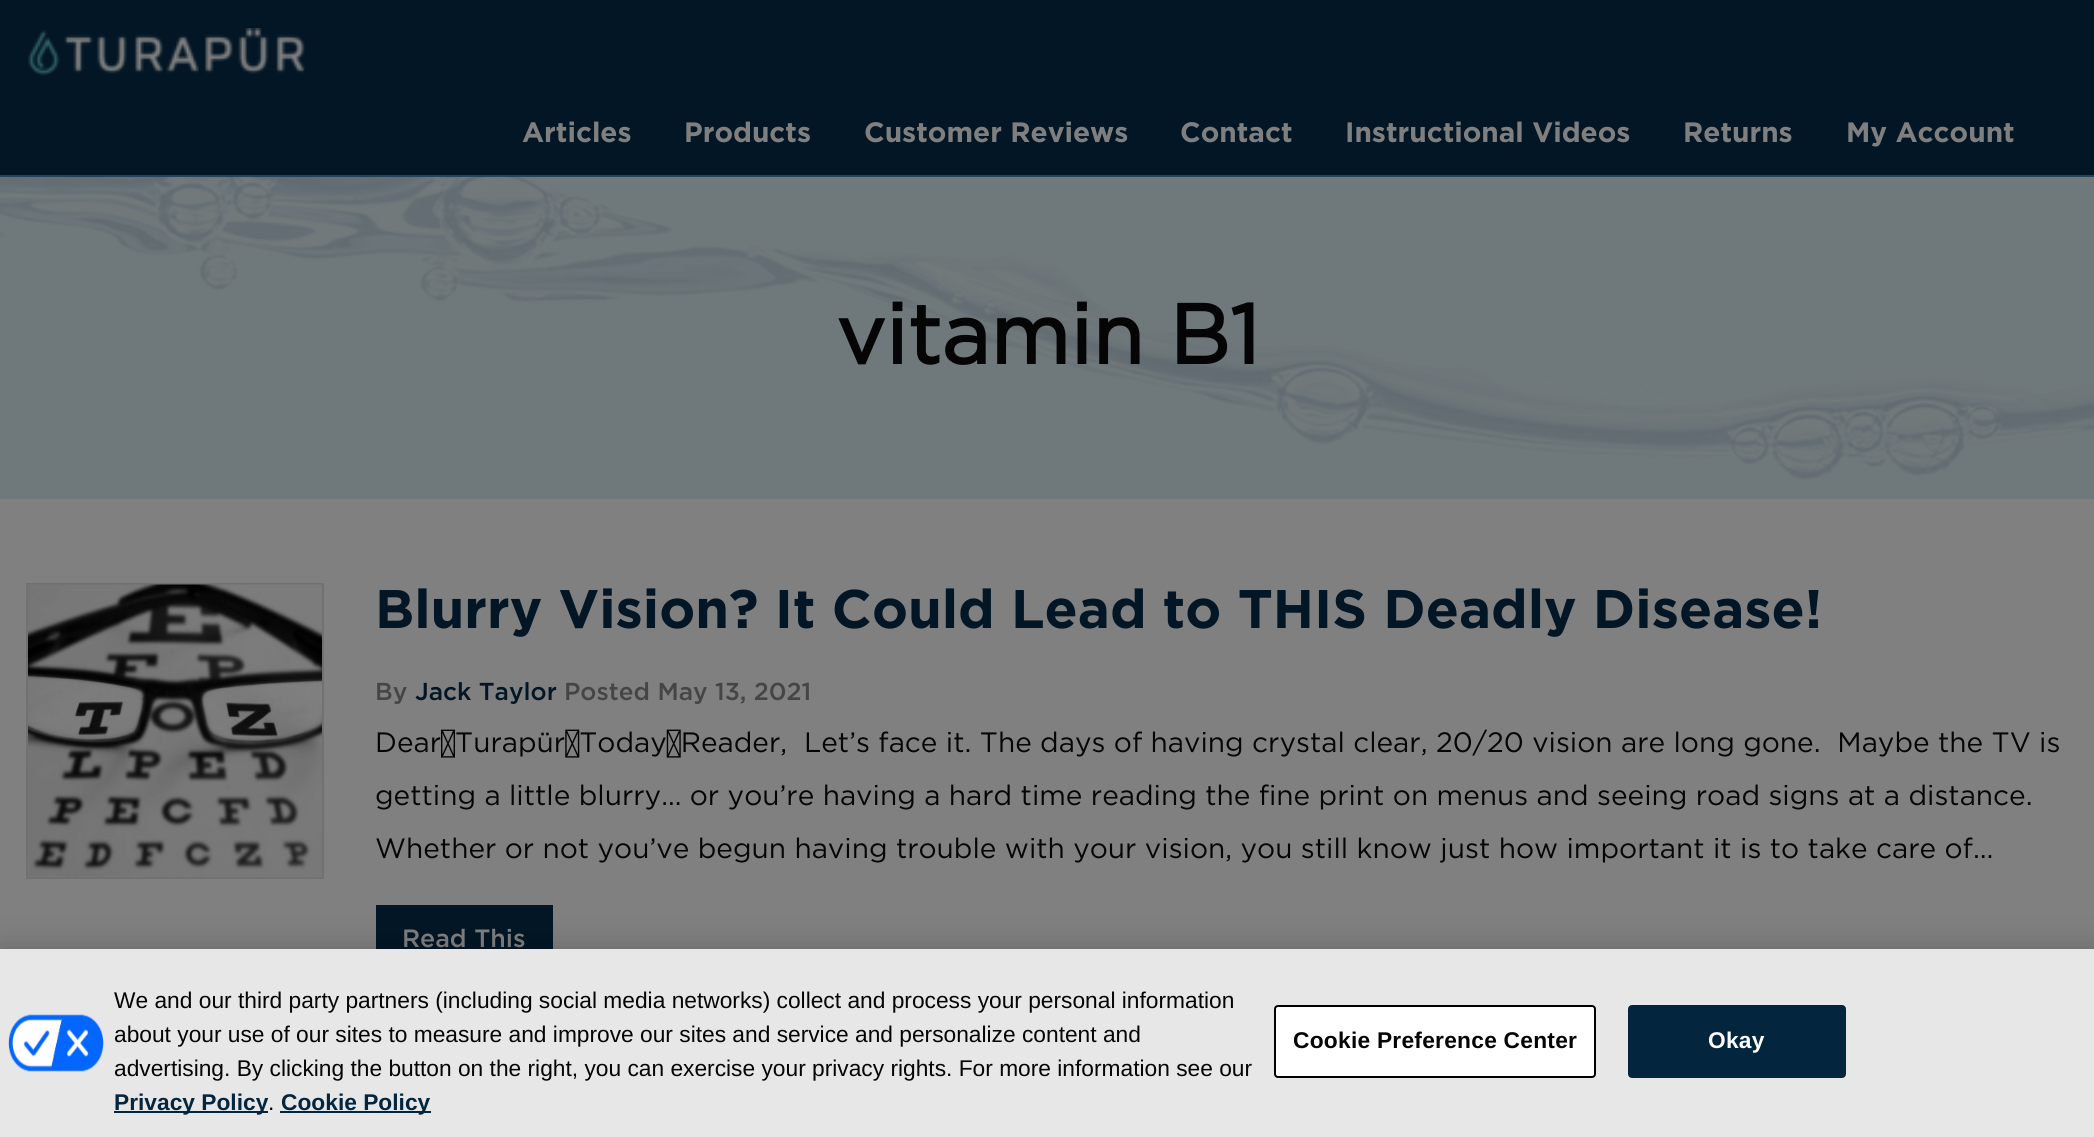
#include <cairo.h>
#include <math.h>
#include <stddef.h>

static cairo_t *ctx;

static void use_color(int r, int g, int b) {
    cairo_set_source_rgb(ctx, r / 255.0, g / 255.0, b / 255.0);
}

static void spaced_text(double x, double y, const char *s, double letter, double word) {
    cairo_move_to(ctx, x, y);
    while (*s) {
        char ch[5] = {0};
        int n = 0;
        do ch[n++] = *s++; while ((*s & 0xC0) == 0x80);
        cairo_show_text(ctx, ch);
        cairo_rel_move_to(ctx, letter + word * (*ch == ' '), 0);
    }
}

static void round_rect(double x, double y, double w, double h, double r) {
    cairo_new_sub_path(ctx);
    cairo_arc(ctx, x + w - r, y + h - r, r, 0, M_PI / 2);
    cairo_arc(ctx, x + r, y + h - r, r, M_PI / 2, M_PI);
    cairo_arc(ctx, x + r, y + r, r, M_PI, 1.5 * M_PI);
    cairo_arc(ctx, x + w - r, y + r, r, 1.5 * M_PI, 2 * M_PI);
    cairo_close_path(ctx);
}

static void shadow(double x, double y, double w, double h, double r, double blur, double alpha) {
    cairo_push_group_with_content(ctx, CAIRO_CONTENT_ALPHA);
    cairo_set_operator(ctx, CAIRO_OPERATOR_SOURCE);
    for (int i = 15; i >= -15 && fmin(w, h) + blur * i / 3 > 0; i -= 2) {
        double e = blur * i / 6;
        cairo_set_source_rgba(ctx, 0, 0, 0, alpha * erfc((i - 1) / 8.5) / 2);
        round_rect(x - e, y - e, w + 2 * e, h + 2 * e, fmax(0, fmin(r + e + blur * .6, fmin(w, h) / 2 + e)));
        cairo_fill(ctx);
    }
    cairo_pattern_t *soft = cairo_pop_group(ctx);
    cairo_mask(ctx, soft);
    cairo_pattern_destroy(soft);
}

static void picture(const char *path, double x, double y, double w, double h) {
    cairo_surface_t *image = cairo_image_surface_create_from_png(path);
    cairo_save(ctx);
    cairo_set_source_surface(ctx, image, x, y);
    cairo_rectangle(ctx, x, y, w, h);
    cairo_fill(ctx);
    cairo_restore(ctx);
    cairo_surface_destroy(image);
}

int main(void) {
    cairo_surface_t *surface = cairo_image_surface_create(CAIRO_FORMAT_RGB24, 2094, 1137);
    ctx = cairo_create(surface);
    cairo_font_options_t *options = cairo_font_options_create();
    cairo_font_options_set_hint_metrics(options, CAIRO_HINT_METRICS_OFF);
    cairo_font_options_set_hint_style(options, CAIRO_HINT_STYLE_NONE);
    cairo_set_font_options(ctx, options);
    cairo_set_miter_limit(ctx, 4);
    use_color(128, 128, 128);
    cairo_paint(ctx);
    use_color(2, 22, 37);
    cairo_rectangle(ctx, 0, 0, 2094, 175);
    cairo_fill(ctx);
    use_color(37, 68, 88);
    cairo_rectangle(ctx, 0, 175, 2094, 2);
    cairo_fill(ctx);
    picture("img1.png", 28, 28, 277, 48);
    cairo_select_font_face(ctx, "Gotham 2", CAIRO_FONT_SLANT_NORMAL, CAIRO_FONT_WEIGHT_BOLD);
    cairo_set_font_size(ctx, 28);
    use_color(127, 127, 127);
    cairo_move_to(ctx, 522, 142);
    cairo_show_text(ctx, "Articles");
    cairo_move_to(ctx, 684, 142);
    cairo_show_text(ctx, "Products");
    cairo_move_to(ctx, 864, 142);
    cairo_show_text(ctx, "Customer Reviews");
    cairo_move_to(ctx, 1180, 142);
    cairo_show_text(ctx, "Contact");
    cairo_move_to(ctx, 1345, 142);
    cairo_show_text(ctx, "Instructional Videos");
    cairo_move_to(ctx, 1683, 142);
    cairo_show_text(ctx, "Returns");
    cairo_move_to(ctx, 1846, 142);
    cairo_show_text(ctx, "My Account");
    use_color(111, 120, 122);
    cairo_rectangle(ctx, 0, 177, 2094, 322);
    cairo_fill(ctx);
    picture("img2.png", 0, 176, 2094, 304);
    cairo_select_font_face(ctx, "Gotham", CAIRO_FONT_SLANT_NORMAL, CAIRO_FONT_WEIGHT_BOLD);
    cairo_set_font_size(ctx, 84);
    use_color(5, 5, 5);
    cairo_move_to(ctx, 836, 364);
    cairo_show_text(ctx, "vitamin B1");
    cairo_rectangle(ctx, 27, 584, 296, 294);
    use_color(113, 113, 113);
    cairo_stroke(ctx);
    picture("img3.png", 28, 584, 294, 293);
    cairo_select_font_face(ctx, "Gotham 2", CAIRO_FONT_SLANT_NORMAL, CAIRO_FONT_WEIGHT_BOLD);
    cairo_set_font_size(ctx, 54.25);
    use_color(2, 22, 37);
    cairo_move_to(ctx, 375, 628);
    cairo_show_text(ctx, "Blurry Vision? It Could Lead to THIS Deadly Disease!");
    cairo_select_font_face(ctx, "Gotham Medium", CAIRO_FONT_SLANT_NORMAL, CAIRO_FONT_WEIGHT_NORMAL);
    cairo_set_font_size(ctx, 24.5);
    use_color(69, 69, 69);
    cairo_move_to(ctx, 375, 700);
    cairo_show_text(ctx, "By");
    use_color(2, 22, 37);
    cairo_move_to(ctx, 415, 700);
    cairo_show_text(ctx, "Jack Taylor");
    use_color(69, 69, 69);
    cairo_move_to(ctx, 564, 700);
    cairo_show_text(ctx, "Posted May 13, 2021");
    cairo_select_font_face(ctx, "Gotham", CAIRO_FONT_SLANT_NORMAL, CAIRO_FONT_WEIGHT_NORMAL);
    cairo_set_font_size(ctx, 28);
    use_color(5, 5, 5);
    cairo_move_to(ctx, 375, 752);
    cairo_show_text(ctx, "Dear Turapür Today Reader,  Let’s face it. The days of having crystal clear, 20/20 vision are long gone.  Maybe the TV is");
    cairo_move_to(ctx, 375, 805);
    cairo_show_text(ctx, "getting a little blurry… or you’re having a hard time reading the fine print on menus and seeing road signs at a distance.");
    cairo_move_to(ctx, 375, 858);
    cairo_show_text(ctx, "Whether or not you’ve begun having trouble with your vision, you still know just how important it is to take care of...");
    use_color(2, 22, 37);
    cairo_rectangle(ctx, 376, 905, 177, 44);
    cairo_fill(ctx);
    cairo_select_font_face(ctx, "Gotham Medium", CAIRO_FONT_SLANT_NORMAL, CAIRO_FONT_WEIGHT_NORMAL);
    cairo_set_font_size(ctx, 25);
    use_color(127, 127, 127);
    cairo_move_to(ctx, 402, 947);
    cairo_show_text(ctx, "Read This");
    use_color(0, 0, 0);
    shadow(0, 949, 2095, 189, 0, 16, 0.2);
    use_color(231, 231, 231);
    cairo_rectangle(ctx, 0, 949, 2094, 188);
    cairo_fill(ctx);
    picture("img4.png", 8, 1014, 96, 58);
    cairo_select_font_face(ctx, "Liberation Sans", CAIRO_FONT_SLANT_NORMAL, CAIRO_FONT_WEIGHT_NORMAL);
    cairo_set_font_size(ctx, 22.75);
    use_color(5, 5, 5);
    cairo_move_to(ctx, 114, 1008);
    cairo_show_text(ctx, "We and our third party partners (including social media networks) collect and process your personal information");
    cairo_move_to(ctx, 114, 1042);
    cairo_show_text(ctx, "about your use of our sites to measure and improve our sites and service and personalize content and");
    cairo_move_to(ctx, 114, 1076);
    cairo_show_text(ctx, "advertising. By clicking the button on the right, you can exercise your privacy rights. For more information see our");
    use_color(3, 37, 62);
    cairo_rectangle(ctx, 114, 1111, 154, 2);
    cairo_fill(ctx);
    cairo_select_font_face(ctx, "Liberation Sans", CAIRO_FONT_SLANT_NORMAL, CAIRO_FONT_WEIGHT_BOLD);
    cairo_move_to(ctx, 114, 1110);
    cairo_show_text(ctx, "Privacy Policy");
    cairo_select_font_face(ctx, "Liberation Sans", CAIRO_FONT_SLANT_NORMAL, CAIRO_FONT_WEIGHT_NORMAL);
    use_color(5, 5, 5);
    cairo_move_to(ctx, 268, 1110);
    cairo_show_text(ctx, ".");
    use_color(3, 37, 62);
    cairo_rectangle(ctx, 280, 1111, 151, 2);
    cairo_fill(ctx);
    cairo_select_font_face(ctx, "Liberation Sans", CAIRO_FONT_SLANT_NORMAL, CAIRO_FONT_WEIGHT_BOLD);
    cairo_move_to(ctx, 281, 1110);
    cairo_show_text(ctx, "Cookie Policy");
    use_color(255, 255, 255);
    round_rect(1275, 1006, 320, 71, 3);
    cairo_fill_preserve(ctx);
    use_color(0, 0, 0);
    cairo_stroke(ctx);
    use_color(5, 5, 5);
    spaced_text(1293, 1048, "Cookie Preference Center", 0.25, 0);
    use_color(3, 37, 62);
    round_rect(1629, 1006, 216, 71, 3);
    cairo_fill_preserve(ctx);
    cairo_stroke(ctx);
    use_color(255, 255, 255);
    spaced_text(1708, 1048, "Okay", 0.25, 0);
    cairo_surface_write_to_png(surface, "result.png");
    cairo_font_options_destroy(options);
    cairo_destroy(ctx);
    cairo_surface_destroy(surface);
    return 0;
}
